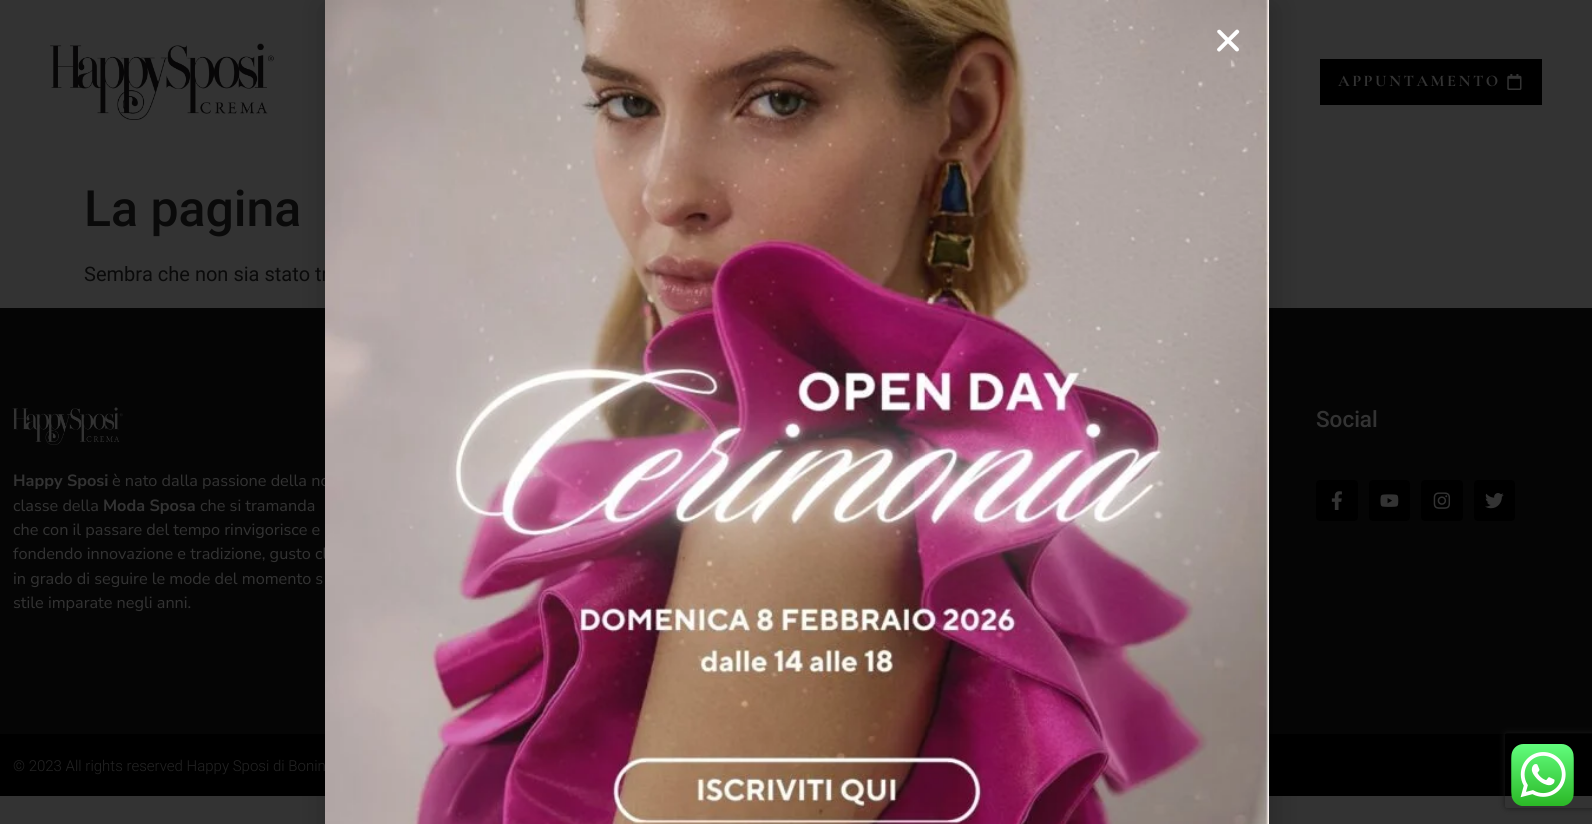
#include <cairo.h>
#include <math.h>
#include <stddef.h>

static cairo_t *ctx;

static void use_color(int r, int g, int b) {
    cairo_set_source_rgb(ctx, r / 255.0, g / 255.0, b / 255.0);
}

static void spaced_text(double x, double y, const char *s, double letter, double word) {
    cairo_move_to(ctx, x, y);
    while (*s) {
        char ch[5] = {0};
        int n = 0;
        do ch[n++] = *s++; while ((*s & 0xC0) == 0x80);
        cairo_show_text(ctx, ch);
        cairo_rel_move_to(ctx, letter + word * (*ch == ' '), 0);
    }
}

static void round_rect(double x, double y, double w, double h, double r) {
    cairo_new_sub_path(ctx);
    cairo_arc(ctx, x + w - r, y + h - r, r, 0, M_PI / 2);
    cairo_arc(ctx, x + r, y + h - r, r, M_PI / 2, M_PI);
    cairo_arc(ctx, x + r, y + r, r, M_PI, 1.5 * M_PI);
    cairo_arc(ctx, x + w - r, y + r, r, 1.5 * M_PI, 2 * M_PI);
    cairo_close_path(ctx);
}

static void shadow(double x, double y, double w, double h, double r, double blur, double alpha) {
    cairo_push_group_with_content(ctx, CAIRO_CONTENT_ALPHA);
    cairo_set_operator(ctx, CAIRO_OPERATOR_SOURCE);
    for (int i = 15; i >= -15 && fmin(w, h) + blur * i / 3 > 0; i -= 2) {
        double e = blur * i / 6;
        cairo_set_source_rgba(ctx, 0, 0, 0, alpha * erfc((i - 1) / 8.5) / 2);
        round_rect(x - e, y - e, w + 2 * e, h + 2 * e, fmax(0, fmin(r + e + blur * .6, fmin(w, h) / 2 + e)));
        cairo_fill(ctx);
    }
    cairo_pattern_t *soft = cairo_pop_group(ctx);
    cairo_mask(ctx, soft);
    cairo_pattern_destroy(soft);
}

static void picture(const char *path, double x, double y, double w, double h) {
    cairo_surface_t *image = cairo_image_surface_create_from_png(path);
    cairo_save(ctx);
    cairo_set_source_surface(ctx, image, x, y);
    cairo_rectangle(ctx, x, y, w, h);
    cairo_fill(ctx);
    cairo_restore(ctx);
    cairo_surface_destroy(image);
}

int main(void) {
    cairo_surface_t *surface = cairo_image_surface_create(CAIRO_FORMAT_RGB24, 1592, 824);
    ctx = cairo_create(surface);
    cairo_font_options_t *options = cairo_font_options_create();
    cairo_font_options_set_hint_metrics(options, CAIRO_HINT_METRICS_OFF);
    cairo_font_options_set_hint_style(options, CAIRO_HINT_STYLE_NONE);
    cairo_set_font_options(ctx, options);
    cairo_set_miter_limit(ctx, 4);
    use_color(51, 51, 51);
    cairo_paint(ctx);
    use_color(5, 5, 5);
    cairo_rectangle(ctx, 0, 308, 1592, 426);
    cairo_fill(ctx);
    use_color(0, 0, 0);
    round_rect(1316, 480, 42, 41, 4);
    cairo_fill(ctx);
    cairo_rectangle(ctx, 0, 734, 1592, 62);
    cairo_fill(ctx);
    use_color(0, 0, 0);
    shadow(324, 6, 951, 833, 0, 14.5, 0.2);
    cairo_select_font_face(ctx, "Roboto", CAIRO_FONT_SLANT_NORMAL, CAIRO_FONT_WEIGHT_NORMAL);
    cairo_set_font_size(ctx, 20);
    use_color(10, 10, 10);
    cairo_move_to(ctx, 84, 281);
    cairo_show_text(ctx, "Sembra che non sia stato tr");
    cairo_select_font_face(ctx, "Nunito Sans", CAIRO_FONT_SLANT_NORMAL, CAIRO_FONT_WEIGHT_NORMAL);
    cairo_set_font_size(ctx, 16.25);
    use_color(51, 51, 51);
    cairo_move_to(ctx, 112, 486);
    cairo_show_text(ctx, "è nato dalla passione della no");
    cairo_move_to(ctx, 13, 559);
    cairo_show_text(ctx, "fondendo innovazione e tradizione, gusto cl");
    picture("img1.png", 325, 0, 944, 824);
    picture("img2.png", 1217, 29, 23, 23);
    picture("img3.png", 50, 43, 224, 77);
    use_color(0, 0, 0);
    cairo_rectangle(ctx, 1320, 59, 222, 46);
    cairo_fill(ctx);
    cairo_select_font_face(ctx, "Cormorant Garamond", CAIRO_FONT_SLANT_NORMAL, CAIRO_FONT_WEIGHT_BOLD);
    use_color(51, 51, 51);
    spaced_text(1338, 86, "APPUNTAMENTO", 2.5, 0);
    picture("img4.png", 1507, 74, 15, 16);
    cairo_select_font_face(ctx, "Roboto Medium", CAIRO_FONT_SLANT_NORMAL, CAIRO_FONT_WEIGHT_NORMAL);
    cairo_set_font_size(ctx, 50);
    use_color(10, 10, 10);
    cairo_move_to(ctx, 84, 226);
    cairo_show_text(ctx, "La pagina");
    cairo_set_font_size(ctx, 22.5);
    use_color(51, 51, 51);
    cairo_move_to(ctx, 1316, 427);
    cairo_show_text(ctx, "Social");
    picture("img5.png", 1331, 491, 11, 19);
    use_color(0, 0, 0);
    round_rect(1369, 480, 41, 41, 4);
    cairo_fill(ctx);
    picture("img6.png", 1380, 494, 19, 13);
    round_rect(1421, 480, 42, 41, 4);
    cairo_fill(ctx);
    picture("img7.png", 1433, 492, 18, 17);
    round_rect(1474, 480, 41, 41, 4);
    cairo_fill(ctx);
    picture("img8.png", 1485, 493, 19, 16);
    picture("img9.png", 12, 407, 111, 38);
    cairo_select_font_face(ctx, "Nunito Sans", CAIRO_FONT_SLANT_NORMAL, CAIRO_FONT_WEIGHT_BOLD);
    cairo_set_font_size(ctx, 16.25);
    use_color(51, 51, 51);
    cairo_move_to(ctx, 13, 486);
    cairo_show_text(ctx, "Happy Sposi");
    cairo_select_font_face(ctx, "Nunito Sans", CAIRO_FONT_SLANT_NORMAL, CAIRO_FONT_WEIGHT_NORMAL);
    cairo_move_to(ctx, 13, 511);
    cairo_show_text(ctx, "classe della");
    cairo_select_font_face(ctx, "Nunito Sans", CAIRO_FONT_SLANT_NORMAL, CAIRO_FONT_WEIGHT_BOLD);
    cairo_move_to(ctx, 103, 511);
    cairo_show_text(ctx, "Moda Sposa");
    cairo_select_font_face(ctx, "Nunito Sans", CAIRO_FONT_SLANT_NORMAL, CAIRO_FONT_WEIGHT_NORMAL);
    cairo_move_to(ctx, 200, 511);
    cairo_show_text(ctx, "che si tramanda");
    cairo_move_to(ctx, 13, 535);
    cairo_show_text(ctx, "che con il passare del tempo rinvigorisce e");
    cairo_move_to(ctx, 13, 584);
    cairo_show_text(ctx, "in grado di seguire le mode del momento s");
    cairo_move_to(ctx, 13, 608);
    cairo_show_text(ctx, "stile imparate negli anni.");
    cairo_select_font_face(ctx, "Roboto Light", CAIRO_FONT_SLANT_NORMAL, CAIRO_FONT_WEIGHT_NORMAL);
    cairo_set_font_size(ctx, 15);
    use_color(35, 35, 35);
    cairo_move_to(ctx, 13, 771);
    cairo_show_text(ctx, "© 2023 All rights reserved Happy Sposi di Bonin");
    cairo_save(ctx);
    cairo_set_fill_rule(ctx, CAIRO_FILL_RULE_EVEN_ODD);
    cairo_new_path(ctx);
    cairo_move_to(ctx, 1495, 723);
    cairo_line_to(ctx, 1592, 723);
    cairo_line_to(ctx, 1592, 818);
    cairo_line_to(ctx, 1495, 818);
    cairo_close_path(ctx);
    cairo_move_to(ctx, 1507.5, 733);
    cairo_line_to(ctx, 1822.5, 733);
    cairo_curve_to(ctx, 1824, 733, 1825, 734, 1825, 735.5);
    cairo_line_to(ctx, 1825, 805.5);
    cairo_curve_to(ctx, 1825, 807, 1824, 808, 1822.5, 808);
    cairo_line_to(ctx, 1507.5, 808);
    cairo_curve_to(ctx, 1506, 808, 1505, 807, 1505, 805.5);
    cairo_line_to(ctx, 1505, 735.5);
    cairo_curve_to(ctx, 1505, 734, 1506, 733, 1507.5, 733);
    cairo_close_path(ctx);
    cairo_clip(ctx);
    use_color(26, 26, 26);
    shadow(1505, 733, 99, 75, 2.5, 3, 1);
    cairo_restore(ctx);
    picture("img10.png", 1511, 744, 63, 62);
    cairo_surface_write_to_png(surface, "result.png");
    cairo_font_options_destroy(options);
    cairo_destroy(ctx);
    cairo_surface_destroy(surface);
    return 0;
}
